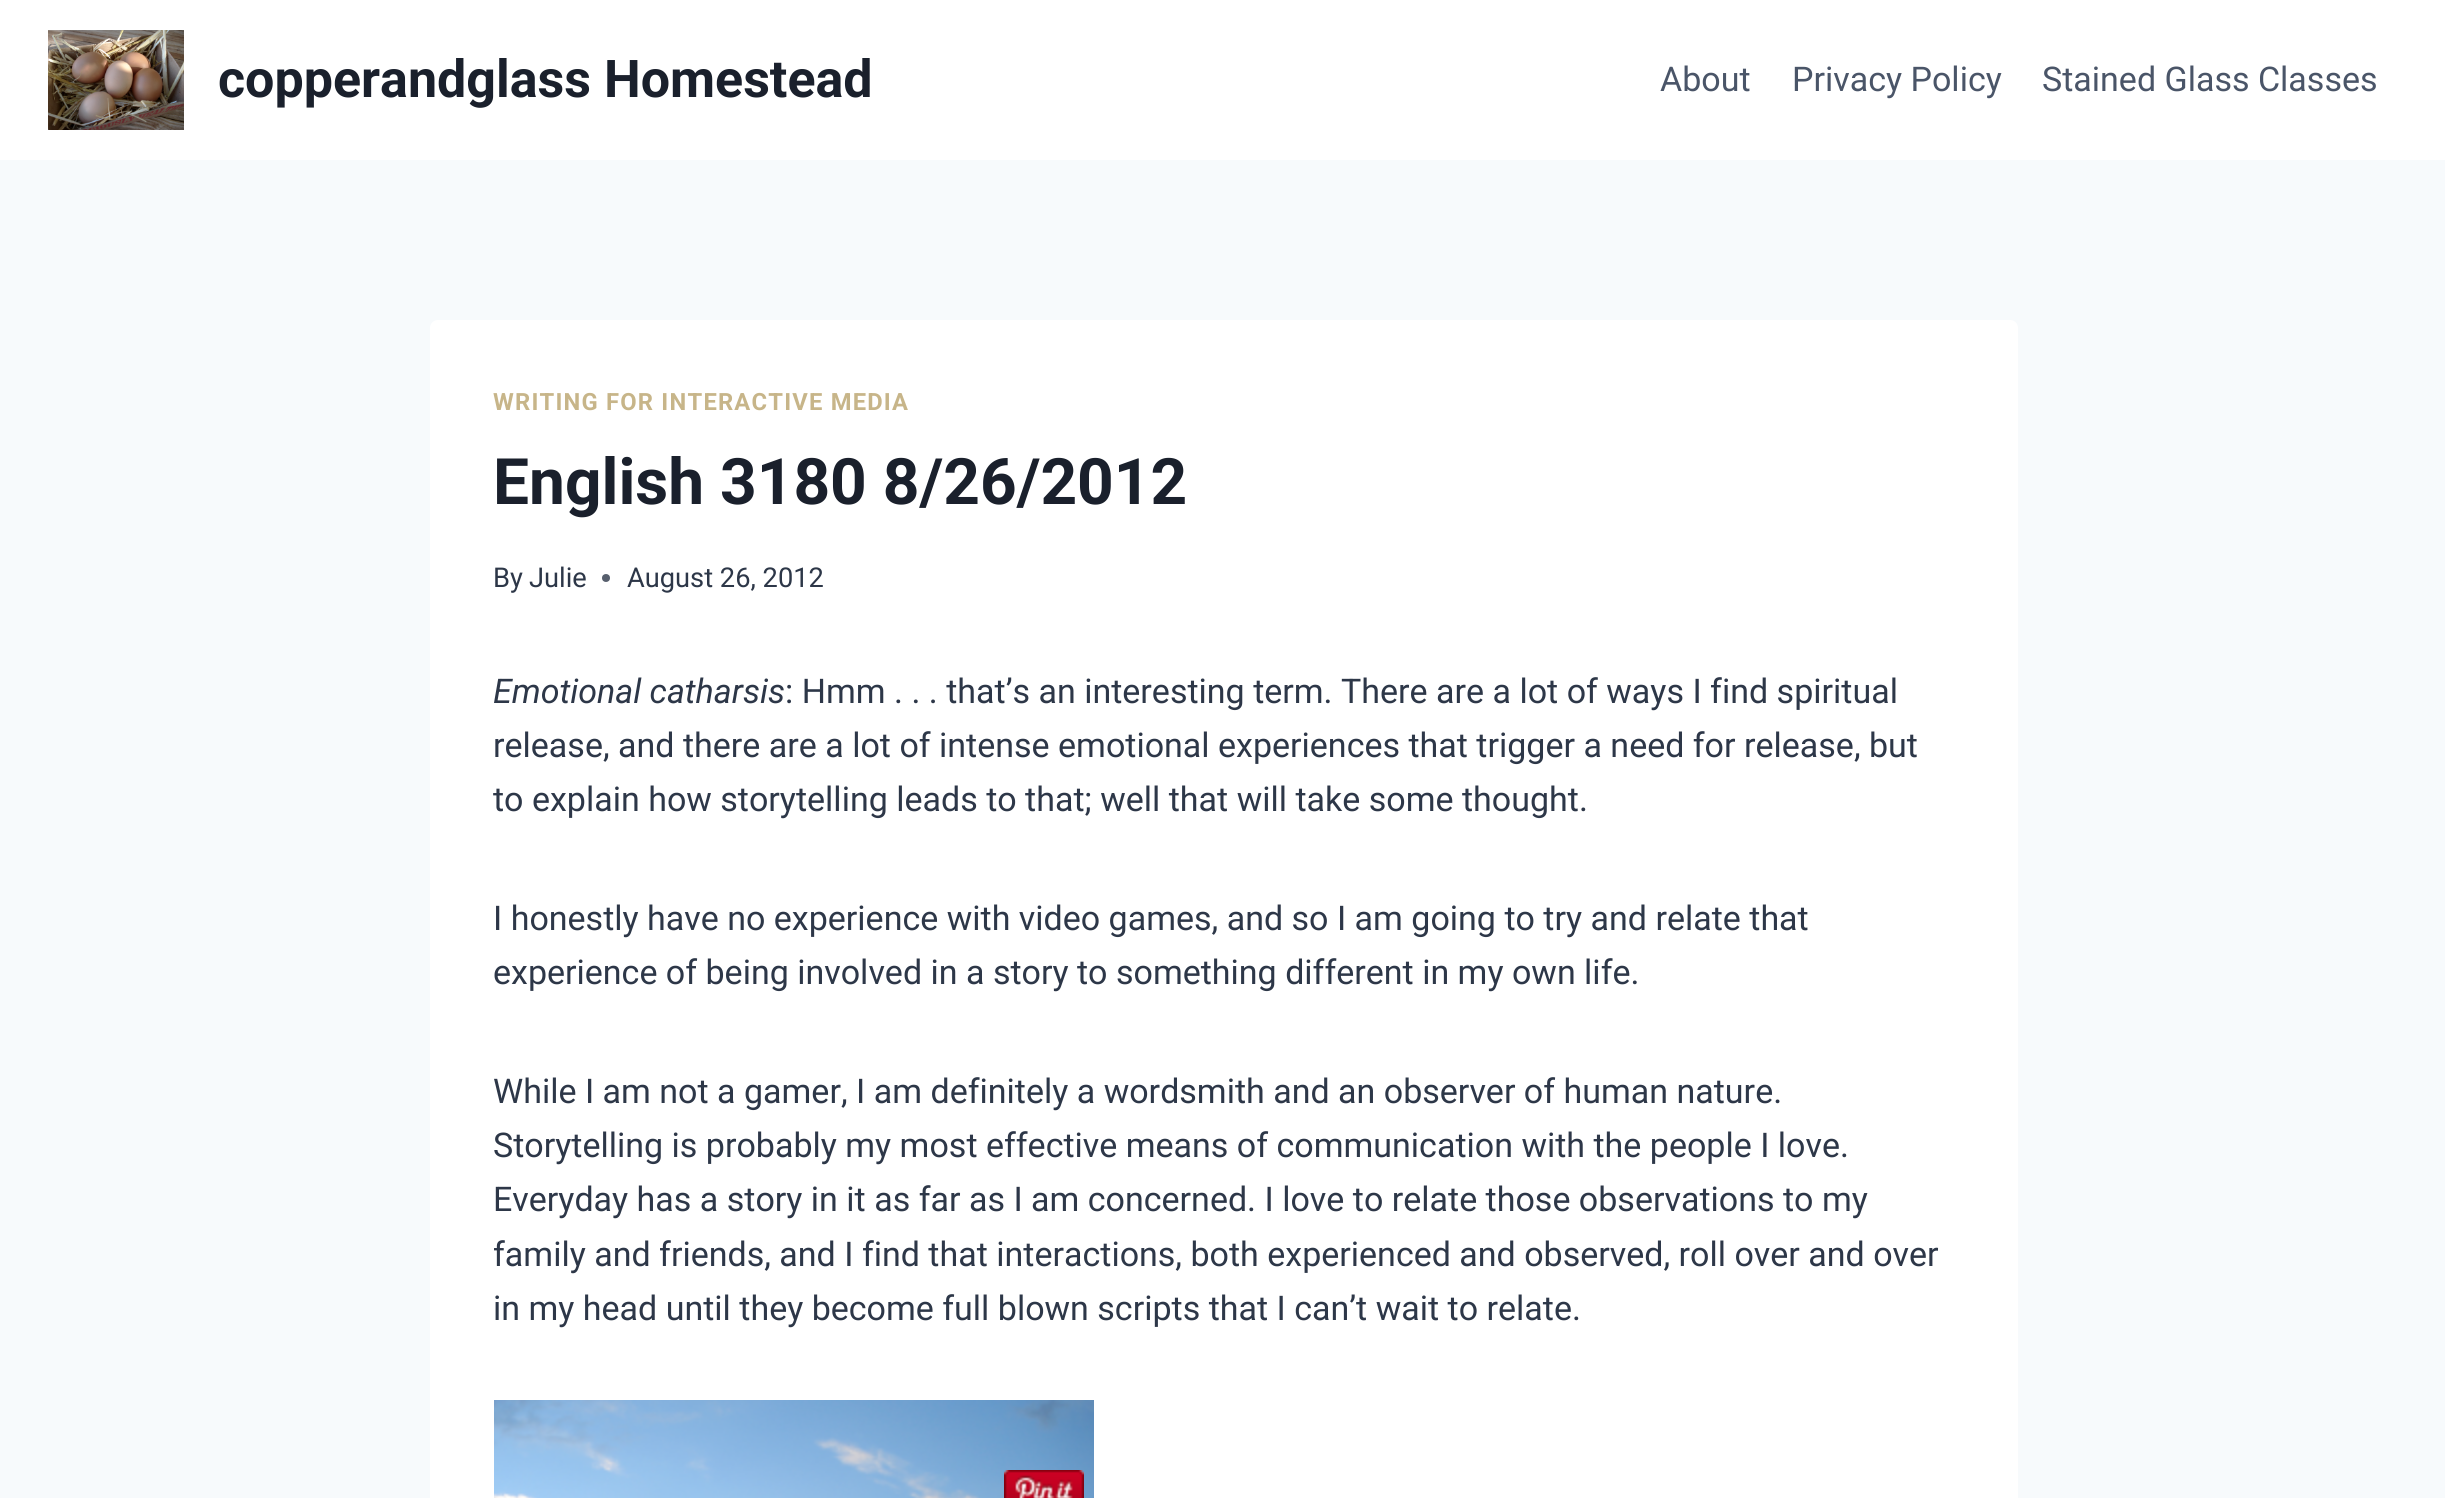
#include <cairo.h>
#include <math.h>
#include <stddef.h>

static cairo_t *ctx;

static void use_color(int r, int g, int b) {
    cairo_set_source_rgb(ctx, r / 255.0, g / 255.0, b / 255.0);
}

static void spaced_text(double x, double y, const char *s, double letter, double word) {
    cairo_move_to(ctx, x, y);
    while (*s) {
        char ch[5] = {0};
        int n = 0;
        do ch[n++] = *s++; while ((*s & 0xC0) == 0x80);
        cairo_show_text(ctx, ch);
        cairo_rel_move_to(ctx, letter + word * (*ch == ' '), 0);
    }
}

static void round_rect(double x, double y, double w, double h, double r) {
    cairo_new_sub_path(ctx);
    cairo_arc(ctx, x + w - r, y + h - r, r, 0, M_PI / 2);
    cairo_arc(ctx, x + r, y + h - r, r, M_PI / 2, M_PI);
    cairo_arc(ctx, x + r, y + r, r, M_PI, 1.5 * M_PI);
    cairo_arc(ctx, x + w - r, y + r, r, 1.5 * M_PI, 2 * M_PI);
    cairo_close_path(ctx);
}

static void picture(const char *path, double x, double y, double w, double h) {
    cairo_surface_t *image = cairo_image_surface_create_from_png(path);
    cairo_save(ctx);
    cairo_set_source_surface(ctx, image, x, y);
    cairo_rectangle(ctx, x, y, w, h);
    cairo_fill(ctx);
    cairo_restore(ctx);
    cairo_surface_destroy(image);
}

int main(void) {
    cairo_surface_t *surface = cairo_image_surface_create(CAIRO_FORMAT_RGB24, 2445, 1498);
    ctx = cairo_create(surface);
    cairo_font_options_t *options = cairo_font_options_create();
    cairo_font_options_set_hint_metrics(options, CAIRO_HINT_METRICS_OFF);
    cairo_font_options_set_hint_style(options, CAIRO_HINT_STYLE_NONE);
    cairo_set_font_options(ctx, options);
    cairo_set_miter_limit(ctx, 4);
    use_color(247, 250, 252);
    cairo_paint(ctx);
    use_color(255, 255, 255);
    cairo_rectangle(ctx, 0, 0, 2445, 160);
    cairo_fill(ctx);
    picture("img1.png", 48, 30, 136, 100);
    cairo_select_font_face(ctx, "Roboto", CAIRO_FONT_SLANT_NORMAL, CAIRO_FONT_WEIGHT_BOLD);
    cairo_set_font_size(ctx, 52);
    use_color(26, 32, 44);
    cairo_move_to(ctx, 218, 97);
    cairo_show_text(ctx, "copperandglass Homestead");
    cairo_select_font_face(ctx, "Roboto", CAIRO_FONT_SLANT_NORMAL, CAIRO_FONT_WEIGHT_NORMAL);
    cairo_set_font_size(ctx, 34);
    use_color(74, 85, 104);
    cairo_move_to(ctx, 1660, 91);
    cairo_show_text(ctx, "About");
    cairo_move_to(ctx, 1792, 91);
    cairo_show_text(ctx, "Privacy Policy");
    cairo_move_to(ctx, 2042, 91);
    cairo_show_text(ctx, "Stained Glass Classes");
    use_color(255, 255, 255);
    round_rect(430, 320, 1588, 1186, 8);
    cairo_fill(ctx);
    cairo_select_font_face(ctx, "Roboto", CAIRO_FONT_SLANT_NORMAL, CAIRO_FONT_WEIGHT_BOLD);
    cairo_set_font_size(ctx, 23.75);
    use_color(199, 181, 137);
    spaced_text(493, 410, "WRITING FOR INTERACTIVE MEDIA", 1.2, 0);
    cairo_set_font_size(ctx, 64);
    use_color(26, 32, 44);
    cairo_move_to(ctx, 493, 504);
    cairo_show_text(ctx, "English 3180 8/26/2012");
    cairo_select_font_face(ctx, "Roboto", CAIRO_FONT_SLANT_NORMAL, CAIRO_FONT_WEIGHT_NORMAL);
    cairo_set_font_size(ctx, 27.25);
    use_color(45, 55, 72);
    cairo_move_to(ctx, 493, 587);
    cairo_show_text(ctx, "By");
    cairo_move_to(ctx, 529, 587);
    cairo_show_text(ctx, "Julie");
    use_color(87, 95, 109);
    cairo_new_path(ctx);
    cairo_arc(ctx, 606, 578, 4, 0, 2 * M_PI);
    cairo_fill(ctx);
    use_color(45, 55, 72);
    cairo_move_to(ctx, 627, 587);
    cairo_show_text(ctx, "August 26, 2012");
    cairo_select_font_face(ctx, "Roboto", CAIRO_FONT_SLANT_ITALIC, CAIRO_FONT_WEIGHT_NORMAL);
    cairo_set_font_size(ctx, 34);
    cairo_move_to(ctx, 493, 703);
    cairo_show_text(ctx, "Emotional catharsis");
    cairo_select_font_face(ctx, "Roboto", CAIRO_FONT_SLANT_NORMAL, CAIRO_FONT_WEIGHT_NORMAL);
    cairo_move_to(ctx, 785, 703);
    cairo_show_text(ctx, ": Hmm . . . that’s an interesting term. There are a lot of ways I find spiritual");
    cairo_move_to(ctx, 493, 757);
    cairo_show_text(ctx, "release, and there are a lot of intense emotional experiences that trigger a need for release, but");
    cairo_move_to(ctx, 493, 811);
    cairo_show_text(ctx, "to explain how storytelling leads to that; well that will take some thought.");
    cairo_move_to(ctx, 493, 930);
    cairo_show_text(ctx, "I honestly have no experience with video games, and so I am going to try and relate that");
    cairo_move_to(ctx, 493, 984);
    cairo_show_text(ctx, "experience of being involved in a story to something different in my own life.");
    cairo_move_to(ctx, 493, 1103);
    cairo_show_text(ctx, "While I am not a gamer, I am definitely a wordsmith and an observer of human nature.");
    cairo_move_to(ctx, 493, 1157);
    cairo_show_text(ctx, "Storytelling is probably my most effective means of communication with the people I love.");
    cairo_move_to(ctx, 493, 1211);
    cairo_show_text(ctx, "Everyday has a story in it as far as I am concerned. I love to relate those observations to my");
    cairo_move_to(ctx, 493, 1266);
    cairo_show_text(ctx, "family and friends, and I find that interactions, both experienced and observed, roll over and over");
    cairo_move_to(ctx, 493, 1320);
    cairo_show_text(ctx, "in my head until they become full blown scripts that I can’t wait to relate.");
    picture("img2.png", 494, 1400, 600, 98);
    picture("img3.png", 1004, 1470, 80, 28);
    cairo_surface_write_to_png(surface, "result.png");
    cairo_font_options_destroy(options);
    cairo_destroy(ctx);
    cairo_surface_destroy(surface);
    return 0;
}
